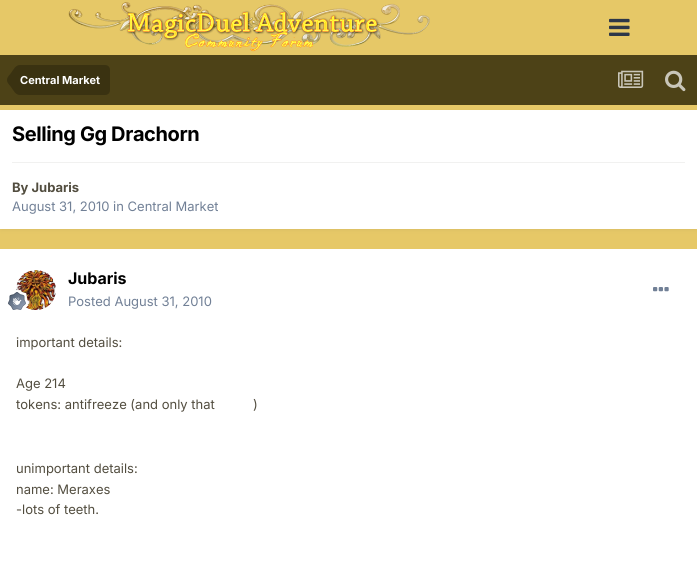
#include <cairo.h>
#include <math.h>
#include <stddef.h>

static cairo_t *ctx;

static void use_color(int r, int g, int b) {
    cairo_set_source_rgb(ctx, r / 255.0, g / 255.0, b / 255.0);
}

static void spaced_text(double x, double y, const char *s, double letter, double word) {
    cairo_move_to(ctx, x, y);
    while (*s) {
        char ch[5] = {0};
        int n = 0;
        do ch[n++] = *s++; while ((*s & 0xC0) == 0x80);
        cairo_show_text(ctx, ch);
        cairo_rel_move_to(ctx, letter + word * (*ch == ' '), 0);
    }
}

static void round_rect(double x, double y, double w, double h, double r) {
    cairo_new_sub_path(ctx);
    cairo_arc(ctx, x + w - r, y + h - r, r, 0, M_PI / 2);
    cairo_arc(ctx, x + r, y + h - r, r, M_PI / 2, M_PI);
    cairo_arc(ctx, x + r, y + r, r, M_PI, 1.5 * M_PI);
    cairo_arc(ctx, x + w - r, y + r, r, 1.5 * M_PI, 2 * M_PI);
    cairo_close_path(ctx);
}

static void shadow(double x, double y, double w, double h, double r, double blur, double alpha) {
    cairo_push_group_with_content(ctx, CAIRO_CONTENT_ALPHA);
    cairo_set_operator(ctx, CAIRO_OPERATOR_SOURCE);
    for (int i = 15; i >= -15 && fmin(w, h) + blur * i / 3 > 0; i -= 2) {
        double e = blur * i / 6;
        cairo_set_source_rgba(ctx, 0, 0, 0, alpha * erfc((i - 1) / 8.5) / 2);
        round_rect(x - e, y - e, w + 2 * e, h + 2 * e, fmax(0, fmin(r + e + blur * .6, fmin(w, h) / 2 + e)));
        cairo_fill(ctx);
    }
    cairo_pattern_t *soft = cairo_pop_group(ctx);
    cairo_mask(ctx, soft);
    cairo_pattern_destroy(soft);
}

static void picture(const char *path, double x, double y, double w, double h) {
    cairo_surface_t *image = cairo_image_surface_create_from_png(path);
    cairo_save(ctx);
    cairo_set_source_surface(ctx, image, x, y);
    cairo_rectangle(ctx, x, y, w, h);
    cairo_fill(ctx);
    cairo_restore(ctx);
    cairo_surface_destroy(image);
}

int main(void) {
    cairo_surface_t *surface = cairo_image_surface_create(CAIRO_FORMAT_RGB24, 697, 567);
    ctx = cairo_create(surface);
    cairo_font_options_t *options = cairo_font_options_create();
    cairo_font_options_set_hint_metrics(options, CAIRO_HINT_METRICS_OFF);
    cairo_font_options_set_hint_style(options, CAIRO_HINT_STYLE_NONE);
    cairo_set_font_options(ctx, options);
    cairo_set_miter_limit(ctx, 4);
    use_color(230, 200, 103);
    cairo_paint(ctx);
    picture("img1.png", 68, 2, 362, 50);
    picture("img2.png", 609, 18, 21, 18);
    use_color(77, 66, 23);
    cairo_rectangle(ctx, 0, 55, 697, 50);
    cairo_fill(ctx);
    use_color(58, 50, 17);
    cairo_new_path(ctx);
    cairo_move_to(ctx, 20, 65);
    cairo_line_to(ctx, 105, 65);
    cairo_curve_to(ctx, 108, 65, 110, 67, 110, 70);
    cairo_line_to(ctx, 110, 90);
    cairo_curve_to(ctx, 110, 93, 108, 95, 105, 95);
    cairo_line_to(ctx, 20, 95);
    cairo_close_path(ctx);
    cairo_fill(ctx);
    cairo_new_path(ctx);
    cairo_move_to(ctx, 20, 80);
    cairo_line_to(ctx, 20, 95);
    cairo_curve_to(ctx, 15.5, 95, 13.5, 90.5, 11, 87);
    cairo_curve_to(ctx, 9.5, 85, 7, 83, 7, 80);
    cairo_close_path(ctx);
    cairo_move_to(ctx, 20, 80);
    cairo_line_to(ctx, 7, 80);
    cairo_curve_to(ctx, 7, 77, 9.5, 75, 11, 73);
    cairo_curve_to(ctx, 13.5, 69.5, 15.5, 65, 20, 65);
    cairo_close_path(ctx);
    cairo_fill(ctx);
    cairo_select_font_face(ctx, "Inter", CAIRO_FONT_SLANT_NORMAL, CAIRO_FONT_WEIGHT_BOLD);
    cairo_set_font_size(ctx, 11);
    use_color(255, 255, 255);
    cairo_move_to(ctx, 20, 84);
    cairo_show_text(ctx, "Central Market");
    picture("img3.png", 618, 70, 26, 18);
    picture("img4.png", 665, 70, 21, 22);
    use_color(105, 91, 76);
    shadow(1, 113, 695, 117, 0, 2, 0.1);
    use_color(255, 255, 255);
    cairo_rectangle(ctx, 0, 110, 697, 119);
    cairo_fill(ctx);
    cairo_set_font_size(ctx, 20);
    use_color(0, 0, 0);
    spaced_text(12, 141, "Selling Gg Drachorn", -0.4, 0);
    use_color(241, 241, 240);
    cairo_rectangle(ctx, 12, 162, 673, 1);
    cairo_fill(ctx);
    cairo_set_font_size(ctx, 13);
    use_color(82, 77, 63);
    cairo_move_to(ctx, 12, 192);
    cairo_show_text(ctx, "By Jubaris");
    cairo_select_font_face(ctx, "Inter", CAIRO_FONT_SLANT_NORMAL, CAIRO_FONT_WEIGHT_NORMAL);
    use_color(113, 128, 150);
    cairo_move_to(ctx, 12, 211);
    cairo_show_text(ctx, "August 31, 2010 in Central Market");
    use_color(255, 255, 255);
    cairo_rectangle(ctx, 0, 249, 697, 318);
    cairo_fill(ctx);
    picture("img5.png", 16, 270, 40, 40);
    picture("img6.png", 8, 290, 20, 20);
    cairo_select_font_face(ctx, "Inter", CAIRO_FONT_SLANT_NORMAL, CAIRO_FONT_WEIGHT_BOLD);
    cairo_set_font_size(ctx, 16);
    use_color(0, 0, 0);
    cairo_move_to(ctx, 68, 284);
    cairo_show_text(ctx, "Jubaris");
    cairo_select_font_face(ctx, "Inter", CAIRO_FONT_SLANT_NORMAL, CAIRO_FONT_WEIGHT_NORMAL);
    cairo_set_font_size(ctx, 13);
    use_color(113, 128, 150);
    cairo_move_to(ctx, 68, 306);
    cairo_show_text(ctx, "Posted August 31, 2010");
    picture("img7.png", 653, 287, 16, 5);
    use_color(82, 77, 63);
    cairo_move_to(ctx, 16, 347);
    cairo_show_text(ctx, "important details:");
    cairo_move_to(ctx, 16, 388);
    cairo_show_text(ctx, "Age 214");
    cairo_move_to(ctx, 16, 409);
    cairo_show_text(ctx, "tokens: antifreeze (and only that");
    cairo_move_to(ctx, 253, 409);
    cairo_show_text(ctx, ")");
    cairo_move_to(ctx, 16, 473);
    cairo_show_text(ctx, "unimportant details:");
    cairo_move_to(ctx, 16, 494);
    cairo_show_text(ctx, "name: Meraxes");
    cairo_move_to(ctx, 16, 514);
    cairo_show_text(ctx, "-lots of teeth.");
    cairo_surface_write_to_png(surface, "result.png");
    cairo_font_options_destroy(options);
    cairo_destroy(ctx);
    cairo_surface_destroy(surface);
    return 0;
}
